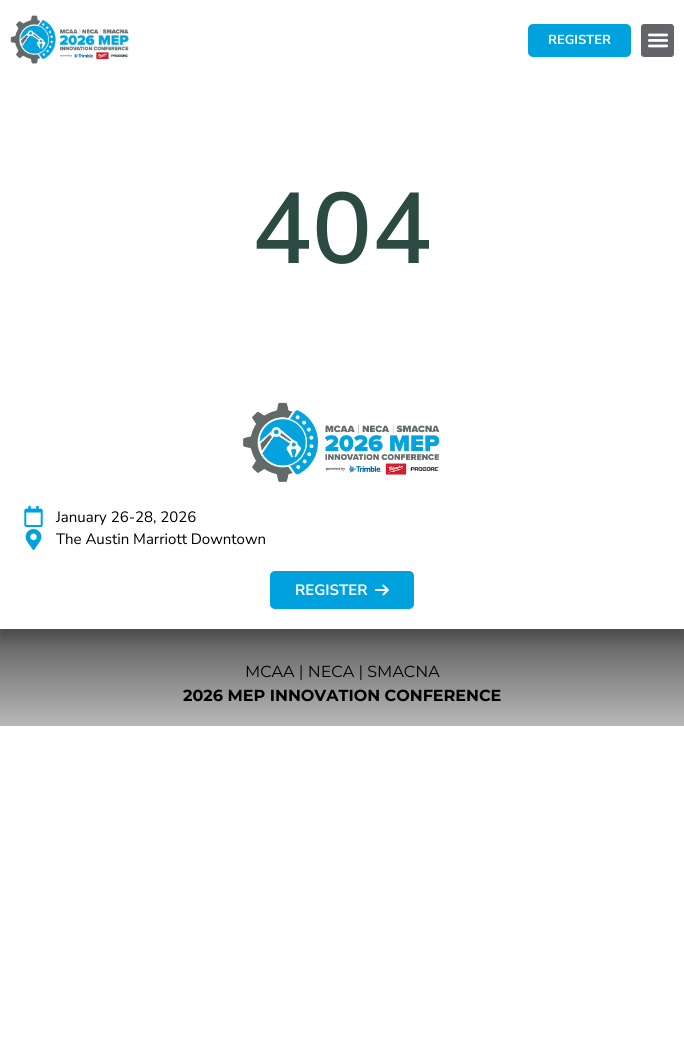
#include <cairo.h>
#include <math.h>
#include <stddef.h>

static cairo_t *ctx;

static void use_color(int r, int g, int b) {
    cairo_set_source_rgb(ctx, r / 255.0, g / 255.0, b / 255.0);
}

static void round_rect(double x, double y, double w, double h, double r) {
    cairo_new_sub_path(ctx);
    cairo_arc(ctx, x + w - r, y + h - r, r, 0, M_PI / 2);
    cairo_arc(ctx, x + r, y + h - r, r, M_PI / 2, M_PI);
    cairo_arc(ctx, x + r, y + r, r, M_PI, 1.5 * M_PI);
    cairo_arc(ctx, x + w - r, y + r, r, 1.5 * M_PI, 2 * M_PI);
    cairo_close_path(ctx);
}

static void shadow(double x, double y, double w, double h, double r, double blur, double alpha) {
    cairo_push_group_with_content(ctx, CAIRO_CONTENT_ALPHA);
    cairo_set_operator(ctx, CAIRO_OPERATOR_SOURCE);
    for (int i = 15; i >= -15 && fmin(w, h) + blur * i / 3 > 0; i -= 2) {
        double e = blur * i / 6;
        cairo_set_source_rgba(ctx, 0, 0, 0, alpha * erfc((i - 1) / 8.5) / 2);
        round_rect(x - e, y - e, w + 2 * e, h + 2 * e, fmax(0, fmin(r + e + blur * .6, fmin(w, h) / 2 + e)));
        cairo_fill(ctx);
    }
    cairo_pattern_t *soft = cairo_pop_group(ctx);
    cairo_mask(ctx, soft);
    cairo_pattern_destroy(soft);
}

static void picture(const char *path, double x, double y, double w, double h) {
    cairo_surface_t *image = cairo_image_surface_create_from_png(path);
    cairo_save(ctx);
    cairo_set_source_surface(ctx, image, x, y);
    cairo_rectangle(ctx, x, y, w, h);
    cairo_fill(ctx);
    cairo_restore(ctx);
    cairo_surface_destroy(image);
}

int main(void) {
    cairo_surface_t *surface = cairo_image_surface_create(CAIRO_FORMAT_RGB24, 684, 1040);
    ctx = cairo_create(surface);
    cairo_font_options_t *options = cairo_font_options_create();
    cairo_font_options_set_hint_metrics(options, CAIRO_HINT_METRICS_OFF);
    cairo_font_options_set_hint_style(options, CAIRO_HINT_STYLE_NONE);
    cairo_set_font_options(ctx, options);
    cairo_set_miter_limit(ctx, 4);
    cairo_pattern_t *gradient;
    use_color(255, 255, 255);
    cairo_paint(ctx);
    picture("img1.png", 10, 15, 119, 49);
    use_color(0, 162, 222);
    round_rect(528, 24, 103, 33, 5);
    cairo_fill(ctx);
    cairo_select_font_face(ctx, "Nunito Sans", CAIRO_FONT_SLANT_NORMAL, CAIRO_FONT_WEIGHT_BOLD);
    cairo_set_font_size(ctx, 13);
    use_color(255, 255, 255);
    cairo_move_to(ctx, 548, 44);
    cairo_show_text(ctx, "REGISTER");
    use_color(99, 101, 105);
    round_rect(641, 24, 33, 33, 3);
    cairo_fill(ctx);
    picture("img2.png", 647, 33, 21, 15);
    cairo_select_font_face(ctx, "Nunito Sans SemiBold", CAIRO_FONT_SLANT_NORMAL, CAIRO_FONT_WEIGHT_NORMAL);
    cairo_set_font_size(ctx, 100);
    use_color(43, 74, 66);
    cairo_move_to(ctx, 252, 263);
    cairo_show_text(ctx, "404");
    gradient = cairo_pattern_create_linear(342, 540, 342, 726);
    cairo_pattern_add_color_stop_rgba(gradient, 0, 0, 0, 0, 1);
    cairo_pattern_add_color_stop_rgba(gradient, 1, 0.725, 0.725, 0.725, 1);
    cairo_set_source(ctx, gradient);
    cairo_pattern_destroy(gradient);
    cairo_rectangle(ctx, 0, 629, 684, 97);
    cairo_fill(ctx);
    use_color(0, 0, 0);
    shadow(0, 390, 684, 249, 0, 5, 0.15);
    use_color(255, 255, 255);
    cairo_rectangle(ctx, 0, 383, 684, 246);
    cairo_fill(ctx);
    picture("img3.png", 243, 402, 197, 80);
    picture("img4.png", 24, 506, 19, 21);
    cairo_select_font_face(ctx, "Nunito Sans", CAIRO_FONT_SLANT_NORMAL, CAIRO_FONT_WEIGHT_NORMAL);
    cairo_set_font_size(ctx, 15);
    use_color(0, 0, 0);
    cairo_move_to(ctx, 56, 522);
    cairo_show_text(ctx, "January 26-28, 2026");
    picture("img5.png", 25, 529, 17, 21);
    cairo_move_to(ctx, 56, 544);
    cairo_show_text(ctx, "The Austin Marriott Downtown");
    use_color(0, 162, 222);
    round_rect(270, 571, 144, 38, 5);
    cairo_fill(ctx);
    cairo_select_font_face(ctx, "Nunito Sans", CAIRO_FONT_SLANT_NORMAL, CAIRO_FONT_WEIGHT_BOLD);
    use_color(255, 255, 255);
    cairo_move_to(ctx, 295, 595);
    cairo_show_text(ctx, "REGISTER");
    picture("img6.png", 374, 584, 15, 12);
    cairo_select_font_face(ctx, "Montserrat", CAIRO_FONT_SLANT_NORMAL, CAIRO_FONT_WEIGHT_NORMAL);
    cairo_set_font_size(ctx, 16);
    use_color(0, 0, 0);
    cairo_move_to(ctx, 245, 677);
    cairo_show_text(ctx, "MCAA | NECA | SMACNA");
    cairo_select_font_face(ctx, "Montserrat", CAIRO_FONT_SLANT_NORMAL, CAIRO_FONT_WEIGHT_BOLD);
    cairo_move_to(ctx, 183, 701);
    cairo_show_text(ctx, "2026 MEP INNOVATION CONFERENCE");
    cairo_surface_write_to_png(surface, "result.png");
    cairo_font_options_destroy(options);
    cairo_destroy(ctx);
    cairo_surface_destroy(surface);
    return 0;
}
